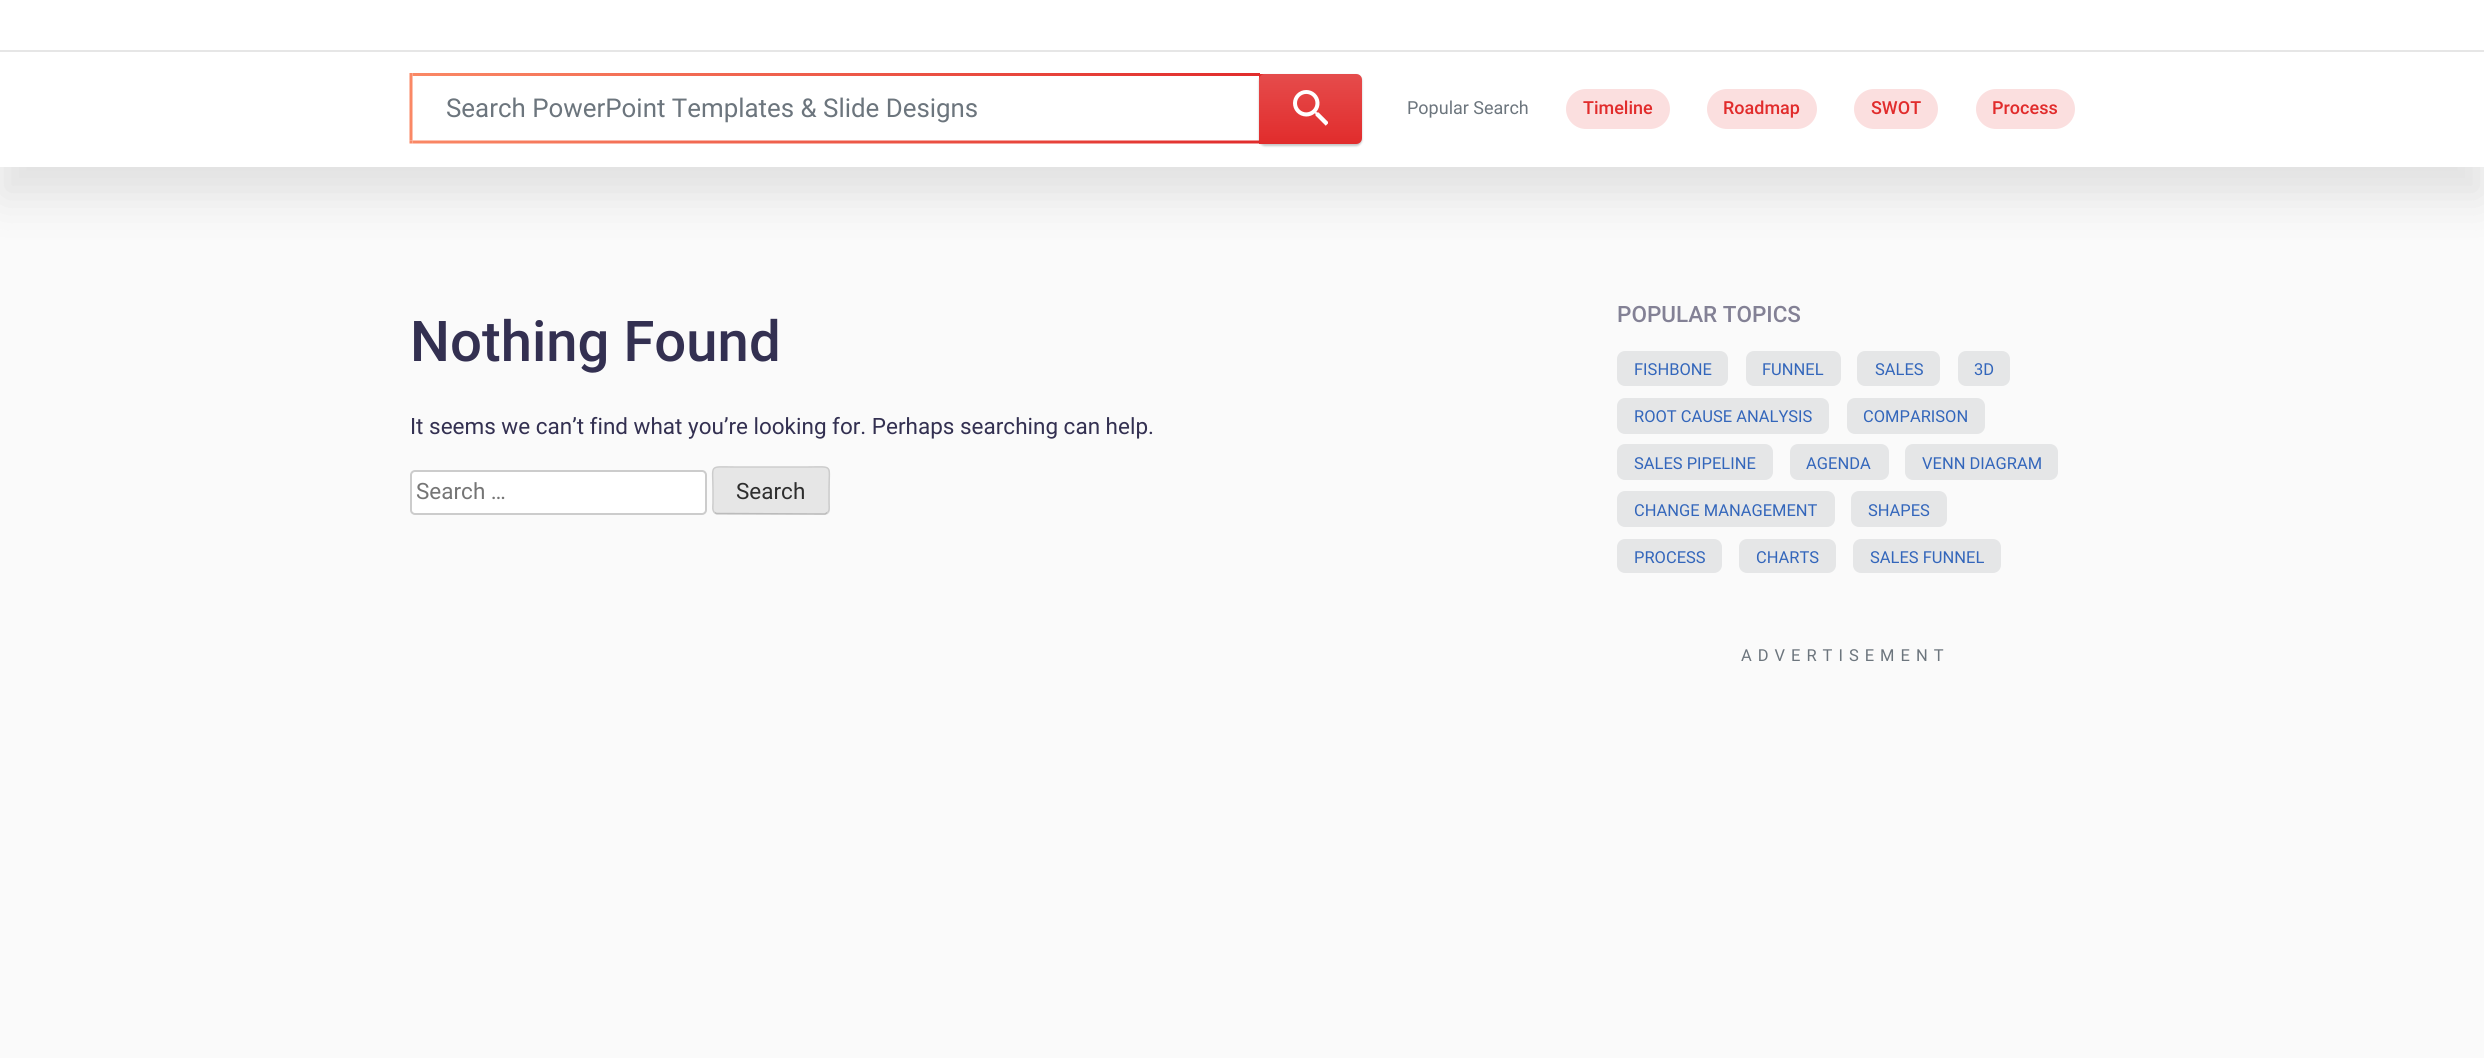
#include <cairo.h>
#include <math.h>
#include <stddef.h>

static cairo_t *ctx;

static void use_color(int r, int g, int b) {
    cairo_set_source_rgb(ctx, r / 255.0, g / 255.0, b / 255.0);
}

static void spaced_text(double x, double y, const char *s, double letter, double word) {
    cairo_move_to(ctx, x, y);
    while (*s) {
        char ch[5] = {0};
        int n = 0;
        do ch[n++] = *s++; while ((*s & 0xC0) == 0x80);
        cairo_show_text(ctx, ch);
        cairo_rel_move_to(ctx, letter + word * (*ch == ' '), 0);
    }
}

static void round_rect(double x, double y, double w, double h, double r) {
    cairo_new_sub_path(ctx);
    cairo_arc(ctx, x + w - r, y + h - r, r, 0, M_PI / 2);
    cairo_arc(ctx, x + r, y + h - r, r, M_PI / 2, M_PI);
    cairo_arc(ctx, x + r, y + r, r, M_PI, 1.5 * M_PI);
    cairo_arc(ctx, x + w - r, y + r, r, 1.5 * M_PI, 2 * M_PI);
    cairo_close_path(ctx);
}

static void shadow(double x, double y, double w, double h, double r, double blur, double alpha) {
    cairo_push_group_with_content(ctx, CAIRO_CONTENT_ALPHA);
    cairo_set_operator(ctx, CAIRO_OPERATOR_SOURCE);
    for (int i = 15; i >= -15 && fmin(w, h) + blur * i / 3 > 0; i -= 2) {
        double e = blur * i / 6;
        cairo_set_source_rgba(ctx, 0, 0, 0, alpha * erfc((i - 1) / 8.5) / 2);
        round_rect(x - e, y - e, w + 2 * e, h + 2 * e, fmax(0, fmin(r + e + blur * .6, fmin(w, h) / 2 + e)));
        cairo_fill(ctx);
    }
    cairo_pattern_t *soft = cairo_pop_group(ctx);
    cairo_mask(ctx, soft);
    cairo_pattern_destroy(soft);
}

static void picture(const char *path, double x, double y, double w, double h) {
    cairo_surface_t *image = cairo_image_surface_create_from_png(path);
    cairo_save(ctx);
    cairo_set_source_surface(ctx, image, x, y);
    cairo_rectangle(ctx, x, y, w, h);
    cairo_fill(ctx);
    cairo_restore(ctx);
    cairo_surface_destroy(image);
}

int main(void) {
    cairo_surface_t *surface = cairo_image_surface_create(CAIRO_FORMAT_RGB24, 2484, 1058);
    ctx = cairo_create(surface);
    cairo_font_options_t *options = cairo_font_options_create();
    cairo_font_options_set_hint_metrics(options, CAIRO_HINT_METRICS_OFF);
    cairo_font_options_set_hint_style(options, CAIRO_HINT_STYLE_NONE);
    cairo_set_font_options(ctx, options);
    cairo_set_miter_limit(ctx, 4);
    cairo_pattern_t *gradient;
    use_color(250, 250, 250);
    cairo_paint(ctx);
    use_color(0, 0, 0);
    shadow(0, 80, 2484, 117, 0, 22.5, 0.1);
    use_color(255, 255, 255);
    cairo_rectangle(ctx, 0, 0, 2484, 50);
    cairo_fill(ctx);
    cairo_rectangle(ctx, 0, 52, 2484, 115);
    cairo_fill(ctx);
    use_color(230, 230, 230);
    cairo_rectangle(ctx, 0, 50, 2484, 2);
    cairo_fill(ctx);
    picture("img1.png", 409, 73, 851, 71);
    cairo_select_font_face(ctx, "Roboto", CAIRO_FONT_SLANT_NORMAL, CAIRO_FONT_WEIGHT_NORMAL);
    cairo_set_font_size(ctx, 25.9);
    use_color(108, 117, 125);
    cairo_move_to(ctx, 446, 117);
    cairo_show_text(ctx, "Search PowerPoint Templates & Slide Designs");
    use_color(60, 64, 67);
    shadow(1259, 75, 103, 71, 6, 1, 0.3);
    use_color(225, 44, 44);
    cairo_new_path(ctx);
    cairo_move_to(ctx, 1259, 74);
    cairo_line_to(ctx, 1356, 74);
    cairo_curve_to(ctx, 1359.5, 74, 1362, 76.5, 1362, 80);
    cairo_line_to(ctx, 1362, 138);
    cairo_curve_to(ctx, 1362, 141.5, 1359.5, 144, 1356, 144);
    cairo_line_to(ctx, 1259, 144);
    cairo_close_path(ctx);
    cairo_fill(ctx);
    picture("img2.png", 1293, 90, 35, 36);
    gradient = cairo_pattern_create_linear(1310, 74, 1310, 144);
    cairo_pattern_add_color_stop_rgba(gradient, 0, 1, 1, 1, 0.15);
    cairo_pattern_add_color_stop_rgba(gradient, 1, 1, 1, 1, 0);
    cairo_set_source(ctx, gradient);
    cairo_pattern_destroy(gradient);
    round_rect(1259, 74, 103, 70, 6);
    cairo_fill(ctx);
    cairo_set_font_size(ctx, 18);
    use_color(108, 117, 125);
    cairo_move_to(ctx, 1407, 114);
    cairo_show_text(ctx, "Popular Search");
    use_color(251, 223, 223);
    round_rect(1566, 89, 104, 40, 20);
    cairo_fill(ctx);
    cairo_select_font_face(ctx, "Roboto Medium", CAIRO_FONT_SLANT_NORMAL, CAIRO_FONT_WEIGHT_NORMAL);
    use_color(225, 44, 44);
    cairo_move_to(ctx, 1583, 114);
    cairo_show_text(ctx, "Timeline");
    use_color(251, 223, 223);
    round_rect(1707, 89, 110, 40, 20);
    cairo_fill(ctx);
    use_color(225, 44, 44);
    cairo_move_to(ctx, 1723, 114);
    cairo_show_text(ctx, "Roadmap");
    use_color(251, 223, 223);
    round_rect(1854, 89, 84, 40, 20);
    cairo_fill(ctx);
    use_color(225, 44, 44);
    cairo_move_to(ctx, 1871, 114);
    cairo_show_text(ctx, "SWOT");
    use_color(251, 223, 223);
    round_rect(1976, 89, 99, 40, 20);
    cairo_fill(ctx);
    use_color(225, 44, 44);
    cairo_move_to(ctx, 1992, 114);
    cairo_show_text(ctx, "Process");
    cairo_set_font_size(ctx, 56.25);
    use_color(51, 48, 81);
    cairo_move_to(ctx, 410, 361);
    cairo_show_text(ctx, "Nothing Found");
    cairo_select_font_face(ctx, "Roboto", CAIRO_FONT_SLANT_NORMAL, CAIRO_FONT_WEIGHT_NORMAL);
    cairo_set_font_size(ctx, 22.5);
    cairo_move_to(ctx, 410, 434);
    cairo_show_text(ctx, "It seems we can’t find what you’re looking for. Perhaps searching can help.");
    use_color(255, 255, 255);
    round_rect(411, 471, 295, 43, 4);
    cairo_fill_preserve(ctx);
    use_color(204, 204, 204);
    cairo_stroke(ctx);
    use_color(117, 117, 117);
    cairo_move_to(ctx, 416, 499);
    cairo_show_text(ctx, "Search …");
    use_color(230, 230, 230);
    round_rect(713, 467, 117, 48, 5);
    cairo_fill(ctx);
    cairo_new_path(ctx);
    cairo_move_to(ctx, 827.5, 512.5);
    cairo_line_to(ctx, 825, 514);
    cairo_line_to(ctx, 716.5, 513.5);
    cairo_line_to(ctx, 714.5, 512.5);
    use_color(187, 187, 187);
    cairo_set_line_width(ctx, 1.5);
    cairo_stroke(ctx);
    cairo_new_path(ctx);
    cairo_move_to(ctx, 714.5, 512.5);
    cairo_curve_to(ctx, 712, 510.5, 713, 505.5, 713, 503.5);
    cairo_line_to(ctx, 713, 490.5);
    cairo_curve_to(ctx, 713, 463.5, 708, 467, 735, 467);
    cairo_line_to(ctx, 807, 467);
    cairo_curve_to(ctx, 834, 467, 829, 463.5, 829, 490.5);
    cairo_line_to(ctx, 829, 503.5);
    cairo_curve_to(ctx, 829, 505.5, 830, 510.5, 827.5, 512.5);
    use_color(204, 204, 204);
    cairo_stroke(ctx);
    use_color(46, 46, 46);
    cairo_move_to(ctx, 736, 499);
    cairo_show_text(ctx, "Search");
    cairo_select_font_face(ctx, "Roboto Medium", CAIRO_FONT_SLANT_NORMAL, CAIRO_FONT_WEIGHT_NORMAL);
    use_color(131, 129, 149);
    cairo_move_to(ctx, 1617, 322);
    cairo_show_text(ctx, "POPULAR TOPICS");
    use_color(229, 230, 231);
    round_rect(1617, 351, 111, 35, 8);
    cairo_fill(ctx);
    cairo_select_font_face(ctx, "Roboto", CAIRO_FONT_SLANT_NORMAL, CAIRO_FONT_WEIGHT_NORMAL);
    cairo_set_font_size(ctx, 16.5);
    use_color(51, 102, 187);
    cairo_move_to(ctx, 1634, 375);
    cairo_show_text(ctx, "FISHBONE");
    use_color(229, 230, 231);
    round_rect(1746, 351, 95, 35, 8);
    cairo_fill(ctx);
    use_color(51, 102, 187);
    cairo_move_to(ctx, 1762, 375);
    cairo_show_text(ctx, "FUNNEL");
    use_color(229, 230, 231);
    round_rect(1857, 351, 83, 35, 8);
    cairo_fill(ctx);
    use_color(51, 102, 187);
    cairo_move_to(ctx, 1875, 375);
    cairo_show_text(ctx, "SALES");
    use_color(229, 230, 231);
    round_rect(1958, 351, 52, 35, 8);
    cairo_fill(ctx);
    use_color(51, 102, 187);
    cairo_move_to(ctx, 1974, 375);
    cairo_show_text(ctx, "3D");
    use_color(229, 230, 231);
    round_rect(1617, 398, 212, 36, 8);
    cairo_fill(ctx);
    use_color(51, 102, 187);
    cairo_move_to(ctx, 1634, 422);
    cairo_show_text(ctx, "ROOT CAUSE ANALYSIS");
    use_color(229, 230, 231);
    round_rect(1847, 398, 138, 36, 8);
    cairo_fill(ctx);
    use_color(51, 102, 187);
    cairo_move_to(ctx, 1863, 422);
    cairo_show_text(ctx, "COMPARISON");
    use_color(229, 230, 231);
    round_rect(1617, 444, 156, 36, 8);
    cairo_fill(ctx);
    use_color(51, 102, 187);
    cairo_move_to(ctx, 1634, 469);
    cairo_show_text(ctx, "SALES PIPELINE");
    use_color(229, 230, 231);
    round_rect(1790, 444, 99, 36, 8);
    cairo_fill(ctx);
    use_color(51, 102, 187);
    cairo_move_to(ctx, 1806, 469);
    cairo_show_text(ctx, "AGENDA");
    use_color(229, 230, 231);
    round_rect(1905, 444, 153, 36, 8);
    cairo_fill(ctx);
    use_color(51, 102, 187);
    cairo_move_to(ctx, 1922, 469);
    cairo_show_text(ctx, "VENN DIAGRAM");
    use_color(229, 230, 231);
    round_rect(1617, 491, 218, 36, 8);
    cairo_fill(ctx);
    use_color(51, 102, 187);
    cairo_move_to(ctx, 1634, 516);
    cairo_show_text(ctx, "CHANGE MANAGEMENT");
    use_color(229, 230, 231);
    round_rect(1851, 491, 96, 36, 8);
    cairo_fill(ctx);
    use_color(51, 102, 187);
    cairo_move_to(ctx, 1868, 516);
    cairo_show_text(ctx, "SHAPES");
    use_color(229, 230, 231);
    round_rect(1617, 539, 105, 34, 8);
    cairo_fill(ctx);
    use_color(51, 102, 187);
    cairo_move_to(ctx, 1634, 563);
    cairo_show_text(ctx, "PROCESS");
    use_color(229, 230, 231);
    round_rect(1739, 539, 97, 34, 8);
    cairo_fill(ctx);
    use_color(51, 102, 187);
    cairo_move_to(ctx, 1756, 563);
    cairo_show_text(ctx, "CHARTS");
    use_color(229, 230, 231);
    round_rect(1853, 539, 148, 34, 8);
    cairo_fill(ctx);
    use_color(51, 102, 187);
    cairo_move_to(ctx, 1870, 563);
    cairo_show_text(ctx, "SALES FUNNEL");
    use_color(108, 117, 125);
    spaced_text(1741, 661, "ADVERTISEMENT", 6, 0);
    cairo_surface_write_to_png(surface, "result.png");
    cairo_font_options_destroy(options);
    cairo_destroy(ctx);
    cairo_surface_destroy(surface);
    return 0;
}
